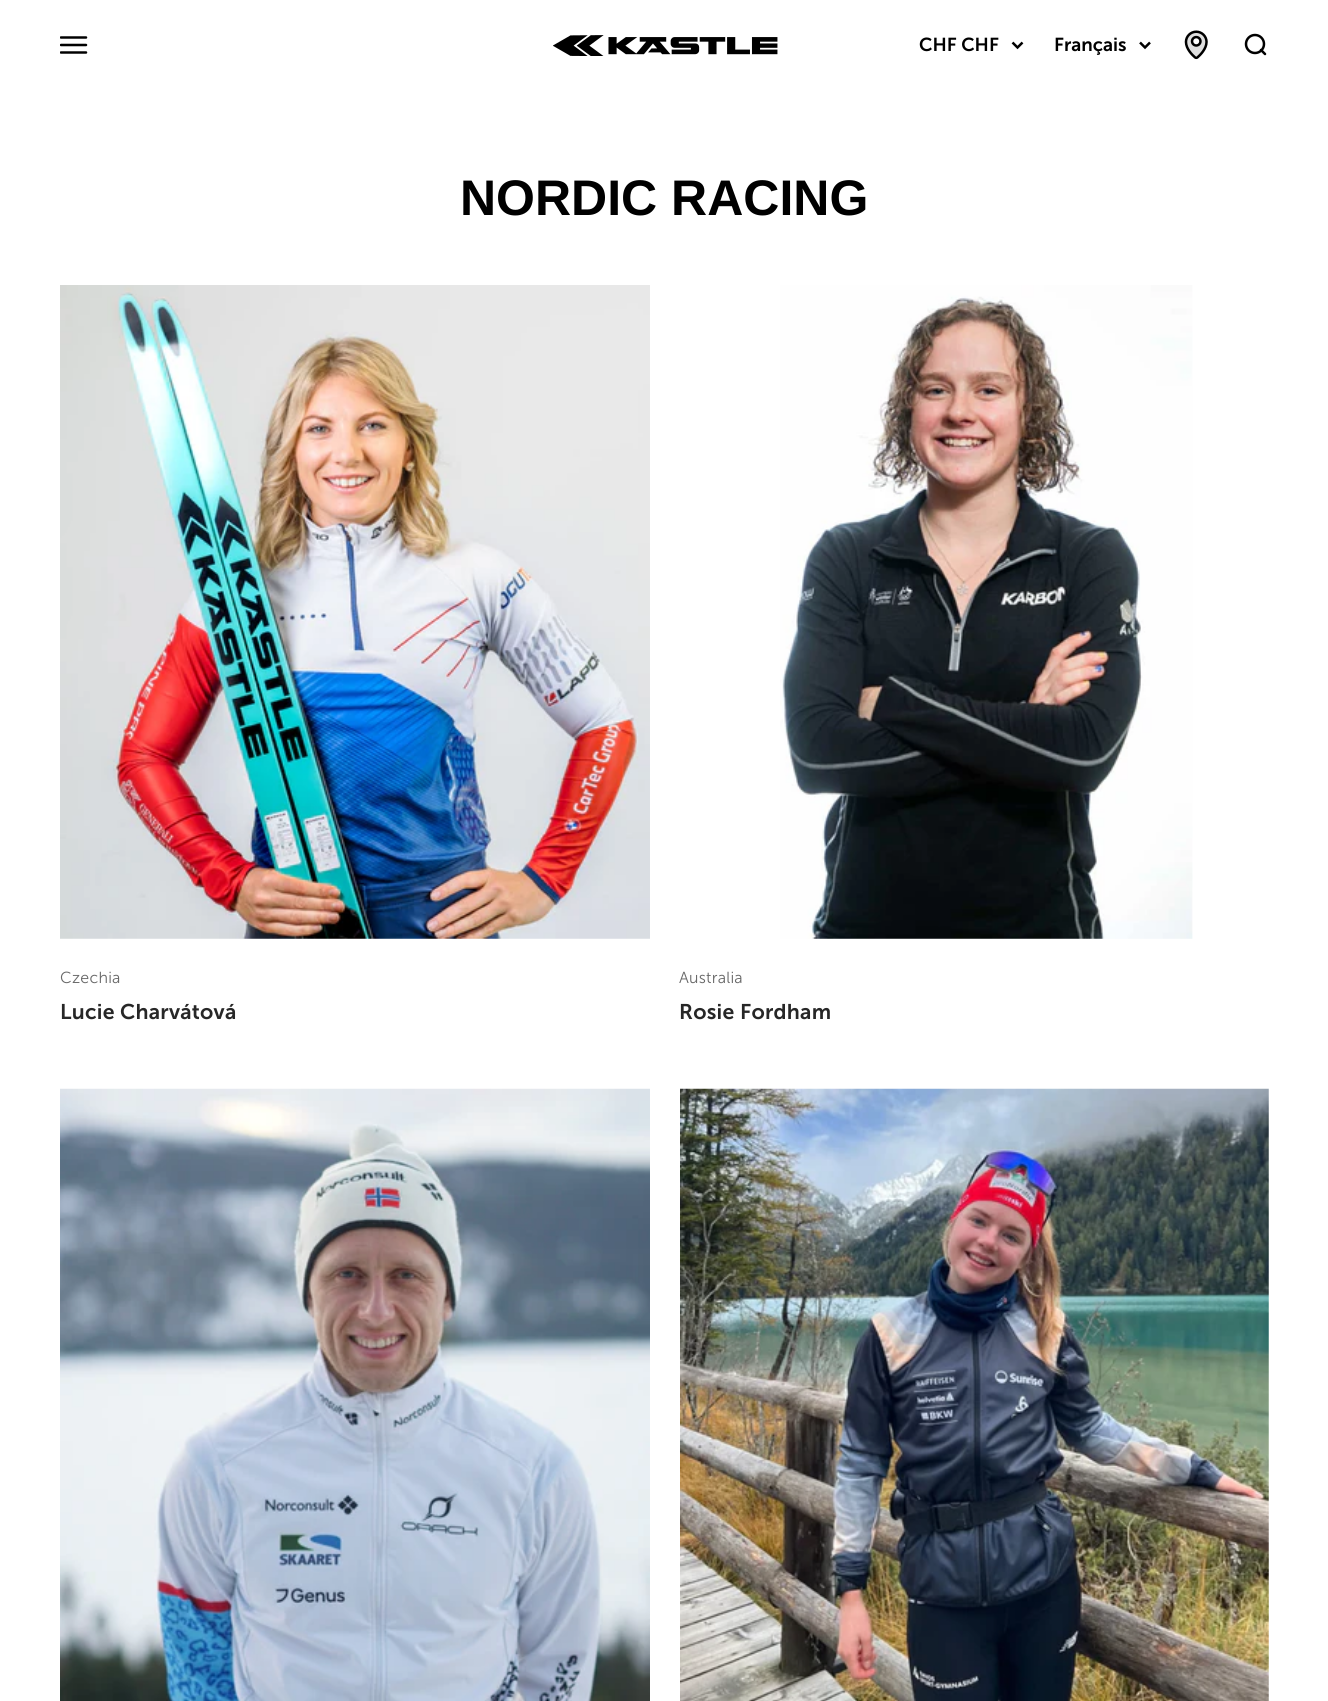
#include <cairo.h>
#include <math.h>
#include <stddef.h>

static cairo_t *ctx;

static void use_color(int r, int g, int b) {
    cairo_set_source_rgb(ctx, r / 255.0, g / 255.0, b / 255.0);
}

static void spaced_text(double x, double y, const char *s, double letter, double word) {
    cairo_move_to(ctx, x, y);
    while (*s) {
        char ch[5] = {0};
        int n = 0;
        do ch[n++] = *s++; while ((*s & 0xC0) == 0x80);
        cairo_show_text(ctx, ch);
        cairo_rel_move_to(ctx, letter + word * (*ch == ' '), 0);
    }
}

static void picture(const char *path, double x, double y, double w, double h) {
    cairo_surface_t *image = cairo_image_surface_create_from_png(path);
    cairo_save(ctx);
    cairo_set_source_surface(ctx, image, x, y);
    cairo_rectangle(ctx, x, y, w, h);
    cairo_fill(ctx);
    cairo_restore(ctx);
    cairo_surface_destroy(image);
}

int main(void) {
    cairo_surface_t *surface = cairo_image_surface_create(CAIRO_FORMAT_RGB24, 1328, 1701);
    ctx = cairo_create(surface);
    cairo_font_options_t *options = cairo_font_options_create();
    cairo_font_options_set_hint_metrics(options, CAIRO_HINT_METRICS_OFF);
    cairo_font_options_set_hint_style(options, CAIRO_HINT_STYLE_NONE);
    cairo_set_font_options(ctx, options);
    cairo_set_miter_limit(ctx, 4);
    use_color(255, 255, 255);
    cairo_paint(ctx);
    cairo_save(ctx);
    cairo_rectangle(ctx, 60, 31, 28, 28);
    cairo_clip(ctx);
    cairo_new_path(ctx);
    cairo_move_to(ctx, 61, 37.5);
    cairo_line_to(ctx, 86, 37.5);
    cairo_move_to(ctx, 61, 45);
    cairo_line_to(ctx, 86, 45);
    cairo_move_to(ctx, 61, 52.5);
    cairo_line_to(ctx, 86, 52.5);
    use_color(0, 0, 0);
    cairo_set_line_width(ctx, 2.5);
    cairo_set_line_cap(ctx, CAIRO_LINE_CAP_ROUND);
    cairo_stroke(ctx);
    cairo_restore(ctx);
    picture("img1.png", 553, 35, 225, 21);
    cairo_select_font_face(ctx, "Museo Sans SemiBold", CAIRO_FONT_SLANT_NORMAL, CAIRO_FONT_WEIGHT_NORMAL);
    cairo_set_font_size(ctx, 18.75);
    use_color(0, 0, 0);
    cairo_move_to(ctx, 919, 51);
    cairo_show_text(ctx, "CHF CHF");
    cairo_new_path(ctx);
    cairo_move_to(ctx, 1012.5, 42.5);
    cairo_line_to(ctx, 1017.5, 47.5);
    cairo_line_to(ctx, 1022.5, 42.5);
    cairo_set_line_width(ctx, 2.5);
    cairo_stroke(ctx);
    cairo_move_to(ctx, 1054, 51);
    cairo_show_text(ctx, "Français");
    cairo_new_path(ctx);
    cairo_move_to(ctx, 1140, 42.5);
    cairo_line_to(ctx, 1145, 47.5);
    cairo_line_to(ctx, 1150, 42.5);
    cairo_stroke(ctx);
    picture("img2.png", 1184, 30, 24, 30);
    cairo_arc(ctx, 1255, 44, 9, 0, 2 * M_PI);
    cairo_stroke(ctx);
    cairo_new_path(ctx);
    cairo_move_to(ctx, 1261, 50);
    cairo_line_to(ctx, 1265, 54);
    cairo_set_line_cap(ctx, CAIRO_LINE_CAP_ROUND);
    cairo_set_line_join(ctx, CAIRO_LINE_JOIN_ROUND);
    cairo_stroke(ctx);
    cairo_select_font_face(ctx, "Liberation Sans", CAIRO_FONT_SLANT_NORMAL, CAIRO_FONT_WEIGHT_BOLD);
    cairo_set_font_size(ctx, 50);
    cairo_move_to(ctx, 460, 215);
    cairo_show_text(ctx, "NORDIC RACING");
    picture("img3.png", 60, 285, 590, 654);
    cairo_select_font_face(ctx, "Museo Sans Light", CAIRO_FONT_SLANT_NORMAL, CAIRO_FONT_WEIGHT_NORMAL);
    cairo_set_font_size(ctx, 16);
    use_color(104, 104, 104);
    spaced_text(60, 983, "Czechia", 0.25, 0);
    cairo_select_font_face(ctx, "Museo Sans SemiBold", CAIRO_FONT_SLANT_NORMAL, CAIRO_FONT_WEIGHT_NORMAL);
    cairo_set_font_size(ctx, 21.25);
    use_color(39, 39, 39);
    spaced_text(60, 1019, "Lucie Charvátová", 0.25, 0);
    picture("img4.png", 780, 285, 413, 654);
    cairo_select_font_face(ctx, "Museo Sans Light", CAIRO_FONT_SLANT_NORMAL, CAIRO_FONT_WEIGHT_NORMAL);
    cairo_set_font_size(ctx, 16);
    use_color(104, 104, 104);
    spaced_text(679, 983, "Australia", 0.25, 0);
    cairo_select_font_face(ctx, "Museo Sans SemiBold", CAIRO_FONT_SLANT_NORMAL, CAIRO_FONT_WEIGHT_NORMAL);
    cairo_set_font_size(ctx, 21.25);
    use_color(39, 39, 39);
    spaced_text(679, 1019, "Rosie Fordham", 0.25, 0);
    picture("img5.png", 60, 1088, 590, 613);
    picture("img6.png", 680, 1088, 589, 613);
    cairo_surface_write_to_png(surface, "result.png");
    cairo_font_options_destroy(options);
    cairo_destroy(ctx);
    cairo_surface_destroy(surface);
    return 0;
}
